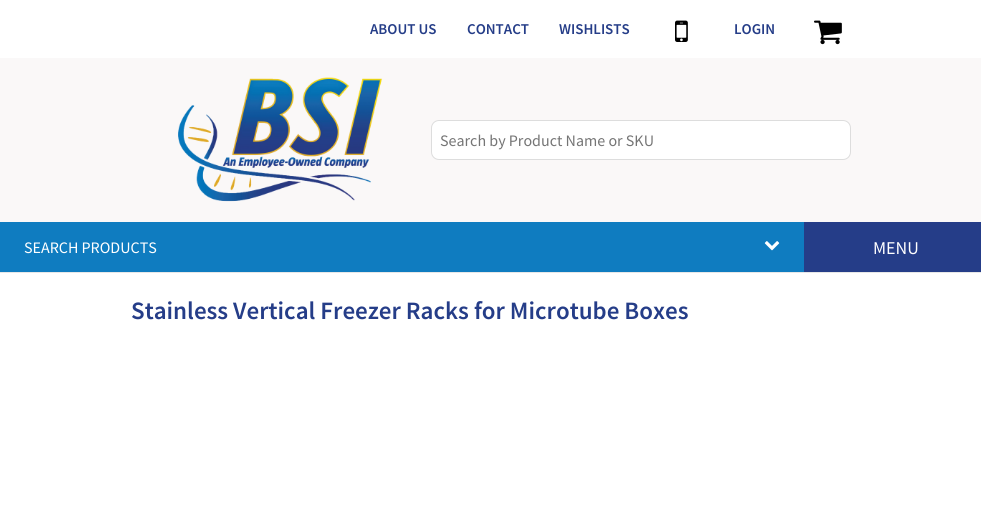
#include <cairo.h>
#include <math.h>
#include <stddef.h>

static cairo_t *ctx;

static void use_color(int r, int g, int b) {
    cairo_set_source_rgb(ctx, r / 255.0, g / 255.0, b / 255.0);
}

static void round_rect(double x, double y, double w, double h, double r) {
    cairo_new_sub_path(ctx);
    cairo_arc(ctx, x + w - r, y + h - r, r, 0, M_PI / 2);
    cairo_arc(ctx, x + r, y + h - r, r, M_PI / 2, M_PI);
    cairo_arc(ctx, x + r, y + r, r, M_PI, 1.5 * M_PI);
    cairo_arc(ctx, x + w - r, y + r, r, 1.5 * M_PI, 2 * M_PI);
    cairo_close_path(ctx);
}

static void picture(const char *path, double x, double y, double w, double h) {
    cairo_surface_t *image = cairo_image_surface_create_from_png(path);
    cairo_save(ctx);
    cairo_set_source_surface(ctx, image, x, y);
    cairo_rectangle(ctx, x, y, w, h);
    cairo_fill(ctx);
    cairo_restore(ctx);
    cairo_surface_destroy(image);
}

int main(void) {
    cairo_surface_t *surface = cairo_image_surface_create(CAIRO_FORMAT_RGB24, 981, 521);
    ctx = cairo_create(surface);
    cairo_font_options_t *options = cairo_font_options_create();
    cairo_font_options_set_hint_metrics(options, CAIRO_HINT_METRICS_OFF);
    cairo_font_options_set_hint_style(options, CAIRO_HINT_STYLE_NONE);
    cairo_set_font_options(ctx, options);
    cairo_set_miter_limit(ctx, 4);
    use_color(255, 255, 255);
    cairo_paint(ctx);
    cairo_select_font_face(ctx, "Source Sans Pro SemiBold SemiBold", CAIRO_FONT_SLANT_NORMAL, CAIRO_FONT_WEIGHT_NORMAL);
    cairo_set_font_size(ctx, 15);
    use_color(37, 61, 136);
    cairo_move_to(ctx, 370, 34);
    cairo_show_text(ctx, "ABOUT US");
    cairo_move_to(ctx, 467, 34);
    cairo_show_text(ctx, "CONTACT");
    cairo_move_to(ctx, 559, 34);
    cairo_show_text(ctx, "WISHLISTS");
    picture("img1.png", 675, 20, 13, 22);
    cairo_move_to(ctx, 734, 34);
    cairo_show_text(ctx, "LOGIN");
    picture("img2.png", 814, 20, 28, 25);
    use_color(250, 248, 248);
    cairo_rectangle(ctx, 0, 58, 981, 164);
    cairo_fill(ctx);
    picture("img3.png", 178, 77, 205, 125);
    use_color(255, 255, 255);
    round_rect(431.5, 120.5, 419, 39, 7.5);
    cairo_fill_preserve(ctx);
    use_color(221, 221, 221);
    cairo_set_line_width(ctx, 1);
    cairo_stroke(ctx);
    cairo_select_font_face(ctx, "Source Sans Pro", CAIRO_FONT_SLANT_NORMAL, CAIRO_FONT_WEIGHT_NORMAL);
    cairo_set_font_size(ctx, 16);
    use_color(117, 117, 117);
    cairo_move_to(ctx, 440, 146);
    cairo_show_text(ctx, "Search by Product Name or SKU");
    use_color(37, 61, 136);
    cairo_rectangle(ctx, 804, 222, 177, 50);
    cairo_fill(ctx);
    use_color(231, 231, 231);
    cairo_rectangle(ctx, 0, 272, 981, 1);
    cairo_fill(ctx);
    use_color(15, 124, 192);
    cairo_rectangle(ctx, 0, 222, 804, 50);
    cairo_fill(ctx);
    use_color(255, 255, 255);
    cairo_move_to(ctx, 24, 253);
    cairo_show_text(ctx, "SEARCH PRODUCTS");
    picture("img4.png", 764, 241, 16, 10);
    cairo_set_font_size(ctx, 18);
    cairo_move_to(ctx, 873, 254);
    cairo_show_text(ctx, "MENU");
    cairo_select_font_face(ctx, "Source Sans Pro SemiBold SemiBold", CAIRO_FONT_SLANT_NORMAL, CAIRO_FONT_WEIGHT_NORMAL);
    cairo_set_font_size(ctx, 25);
    use_color(37, 61, 136);
    cairo_move_to(ctx, 131, 319);
    cairo_show_text(ctx, "Stainless Vertical Freezer Racks for Microtube Boxes");
    cairo_surface_write_to_png(surface, "result.png");
    cairo_font_options_destroy(options);
    cairo_destroy(ctx);
    cairo_surface_destroy(surface);
    return 0;
}
